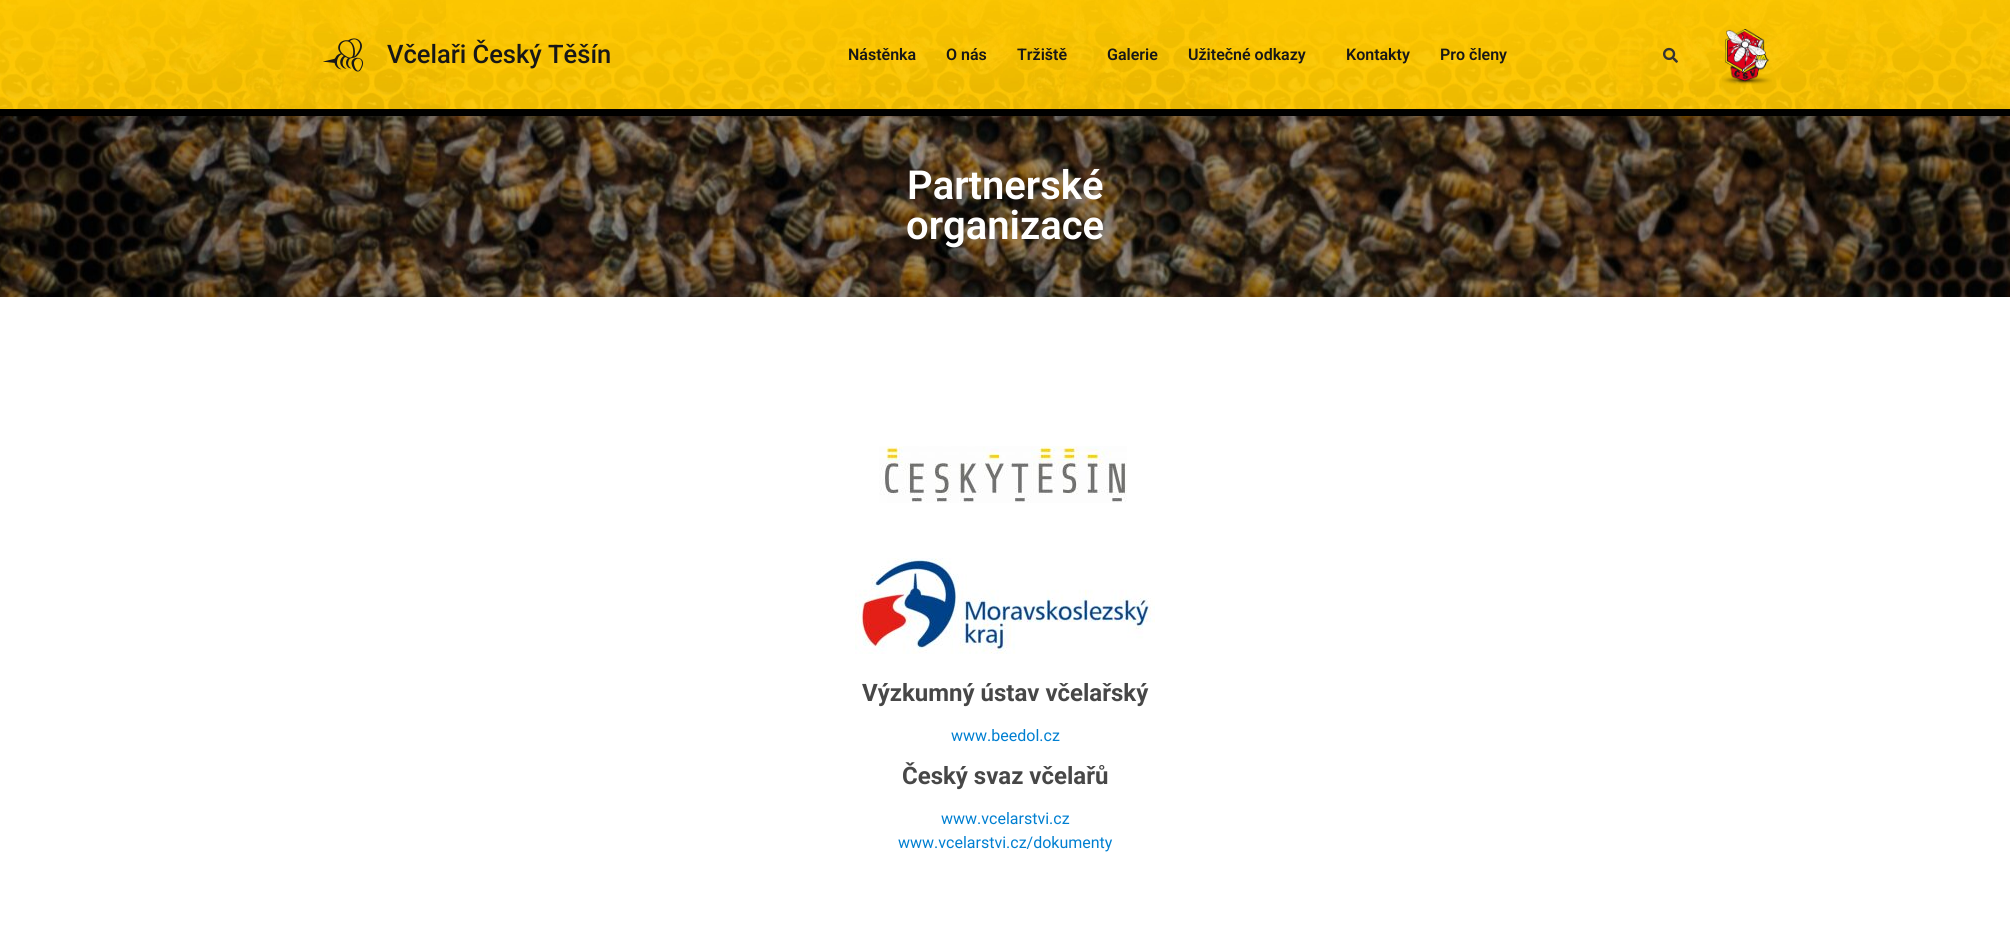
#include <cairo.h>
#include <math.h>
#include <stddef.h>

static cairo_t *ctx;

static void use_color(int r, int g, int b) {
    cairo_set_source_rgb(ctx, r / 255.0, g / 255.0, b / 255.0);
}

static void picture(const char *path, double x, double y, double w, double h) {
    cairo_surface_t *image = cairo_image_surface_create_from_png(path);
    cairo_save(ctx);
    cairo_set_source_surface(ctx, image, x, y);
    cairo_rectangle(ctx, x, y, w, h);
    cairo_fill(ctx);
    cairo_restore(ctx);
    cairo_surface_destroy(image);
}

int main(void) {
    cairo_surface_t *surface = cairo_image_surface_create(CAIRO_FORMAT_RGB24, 2010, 948);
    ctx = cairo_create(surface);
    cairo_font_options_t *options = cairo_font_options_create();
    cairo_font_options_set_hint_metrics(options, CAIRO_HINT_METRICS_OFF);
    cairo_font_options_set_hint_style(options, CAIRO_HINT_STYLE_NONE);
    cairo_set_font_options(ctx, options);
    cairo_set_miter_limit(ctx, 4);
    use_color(255, 255, 255);
    cairo_paint(ctx);
    picture("img1.png", 0, 0, 2010, 109);
    picture("img2.png", 323, 38, 41, 34);
    cairo_select_font_face(ctx, "Roboto Medium", CAIRO_FONT_SLANT_NORMAL, CAIRO_FONT_WEIGHT_NORMAL);
    cairo_set_font_size(ctx, 25.5);
    use_color(23, 23, 23);
    cairo_move_to(ctx, 387, 63);
    cairo_show_text(ctx, "Včelaři Český Těšín");
    cairo_select_font_face(ctx, "Roboto SemiBold", CAIRO_FONT_SLANT_NORMAL, CAIRO_FONT_WEIGHT_NORMAL);
    cairo_set_font_size(ctx, 16);
    cairo_move_to(ctx, 848, 60);
    cairo_show_text(ctx, "Nástěnka");
    cairo_move_to(ctx, 946, 60);
    cairo_show_text(ctx, "O nás");
    cairo_move_to(ctx, 1017, 60);
    cairo_show_text(ctx, "Tržiště");
    cairo_move_to(ctx, 1107, 60);
    cairo_show_text(ctx, "Galerie");
    cairo_move_to(ctx, 1188, 60);
    cairo_show_text(ctx, "Užitečné odkazy");
    cairo_move_to(ctx, 1346, 60);
    cairo_show_text(ctx, "Kontakty");
    cairo_move_to(ctx, 1440, 60);
    cairo_show_text(ctx, "Pro členy");
    picture("img3.png", 1663, 47, 15, 16);
    picture("img4.png", 1722, 29, 50, 56);
    use_color(0, 0, 0);
    cairo_rectangle(ctx, 0, 109, 2010, 7);
    cairo_fill(ctx);
    picture("img5.png", 0, 116, 2010, 181);
    cairo_set_font_size(ctx, 40);
    use_color(255, 255, 255);
    cairo_move_to(ctx, 907, 199);
    cairo_show_text(ctx, "Partnerské");
    cairo_move_to(ctx, 906, 239);
    cairo_show_text(ctx, "organizace");
    picture("img6.png", 879, 446, 248, 57);
    picture("img7.png", 855, 558, 300, 96);
    cairo_select_font_face(ctx, "Roboto", CAIRO_FONT_SLANT_NORMAL, CAIRO_FONT_WEIGHT_BOLD);
    cairo_set_font_size(ctx, 24);
    use_color(71, 71, 71);
    cairo_move_to(ctx, 862, 701);
    cairo_show_text(ctx, "Výzkumný ústav včelařský");
    cairo_select_font_face(ctx, "Roboto", CAIRO_FONT_SLANT_NORMAL, CAIRO_FONT_WEIGHT_NORMAL);
    cairo_set_font_size(ctx, 16);
    use_color(0, 127, 209);
    cairo_move_to(ctx, 951, 741);
    cairo_show_text(ctx, "www.beedol.cz");
    cairo_select_font_face(ctx, "Roboto", CAIRO_FONT_SLANT_NORMAL, CAIRO_FONT_WEIGHT_BOLD);
    cairo_set_font_size(ctx, 24);
    use_color(71, 71, 71);
    cairo_move_to(ctx, 902, 784);
    cairo_show_text(ctx, "Český svaz včelařů");
    cairo_select_font_face(ctx, "Roboto", CAIRO_FONT_SLANT_NORMAL, CAIRO_FONT_WEIGHT_NORMAL);
    cairo_set_font_size(ctx, 16);
    use_color(0, 127, 209);
    cairo_move_to(ctx, 941, 824);
    cairo_show_text(ctx, "www.vcelarstvi.cz");
    cairo_move_to(ctx, 898, 848);
    cairo_show_text(ctx, "www.vcelarstvi.cz/dokumenty");
    cairo_surface_write_to_png(surface, "result.png");
    cairo_font_options_destroy(options);
    cairo_destroy(ctx);
    cairo_surface_destroy(surface);
    return 0;
}
